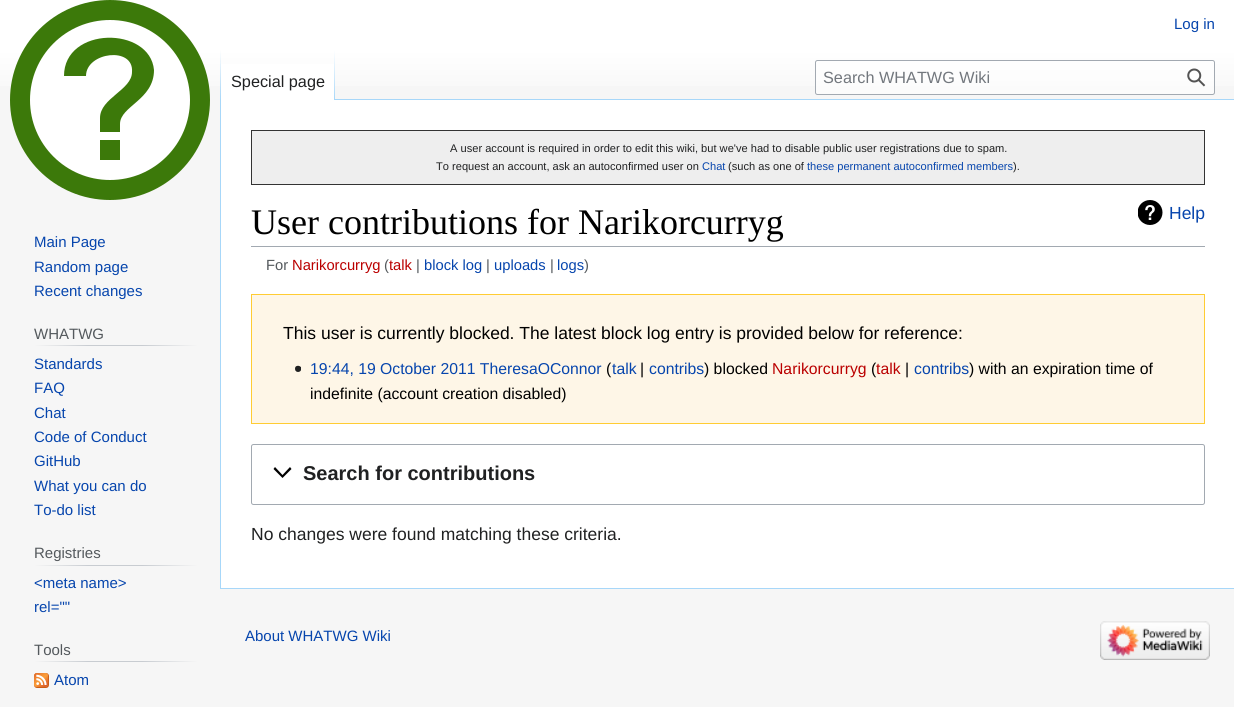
#include <cairo.h>
#include <math.h>
#include <stddef.h>

static cairo_t *ctx;

static void use_color(int r, int g, int b) {
    cairo_set_source_rgb(ctx, r / 255.0, g / 255.0, b / 255.0);
}

static void round_rect(double x, double y, double w, double h, double r) {
    cairo_new_sub_path(ctx);
    cairo_arc(ctx, x + w - r, y + h - r, r, 0, M_PI / 2);
    cairo_arc(ctx, x + r, y + h - r, r, M_PI / 2, M_PI);
    cairo_arc(ctx, x + r, y + r, r, M_PI, 1.5 * M_PI);
    cairo_arc(ctx, x + w - r, y + r, r, 1.5 * M_PI, 2 * M_PI);
    cairo_close_path(ctx);
}

static void picture(const char *path, double x, double y, double w, double h) {
    cairo_surface_t *image = cairo_image_surface_create_from_png(path);
    cairo_save(ctx);
    cairo_set_source_surface(ctx, image, x, y);
    cairo_rectangle(ctx, x, y, w, h);
    cairo_fill(ctx);
    cairo_restore(ctx);
    cairo_surface_destroy(image);
}

int main(void) {
    cairo_surface_t *surface = cairo_image_surface_create(CAIRO_FORMAT_RGB24, 1234, 707);
    ctx = cairo_create(surface);
    cairo_font_options_t *options = cairo_font_options_create();
    cairo_font_options_set_hint_metrics(options, CAIRO_HINT_METRICS_OFF);
    cairo_font_options_set_hint_style(options, CAIRO_HINT_STYLE_NONE);
    cairo_set_font_options(ctx, options);
    cairo_set_miter_limit(ctx, 4);
    cairo_pattern_t *gradient;
    use_color(246, 246, 246);
    cairo_paint(ctx);
    gradient = cairo_pattern_create_linear(618, 0, 618, 100);
    cairo_pattern_add_color_stop_rgba(gradient, 0.5, 1, 1, 1, 1);
    cairo_pattern_add_color_stop_rgba(gradient, 1, 0.965, 0.965, 0.965, 1);
    cairo_set_source(ctx, gradient);
    cairo_pattern_destroy(gradient);
    cairo_rectangle(ctx, 0, 0, 1234, 86);
    cairo_fill(ctx);
    cairo_select_font_face(ctx, "Liberation Sans", CAIRO_FONT_SLANT_NORMAL, CAIRO_FONT_WEIGHT_NORMAL);
    cairo_set_font_size(ctx, 15);
    use_color(6, 69, 173);
    cairo_move_to(ctx, 1174, 29);
    cairo_show_text(ctx, "Log in");
    use_color(167, 215, 249);
    cairo_rectangle(ctx, 220, 588, 1014, 1);
    cairo_fill(ctx);
    cairo_rectangle(ctx, 220, 99, 1, 490);
    cairo_fill(ctx);
    gradient = cairo_pattern_create_linear(221, 50, 221, 100);
    cairo_pattern_add_color_stop_rgba(gradient, 0, 0.655, 0.843, 0.976, 0);
    cairo_pattern_add_color_stop_rgba(gradient, 1, 0.655, 0.843, 0.976, 1);
    cairo_set_source(ctx, gradient);
    cairo_pattern_destroy(gradient);
    cairo_rectangle(ctx, 220, 50, 1, 50);
    cairo_fill(ctx);
    use_color(255, 255, 255);
    cairo_rectangle(ctx, 221, 64, 113, 36);
    cairo_fill(ctx);
    gradient = cairo_pattern_create_linear(334, 50, 334, 100);
    cairo_pattern_add_color_stop_rgba(gradient, 0, 1, 1, 1, 1);
    cairo_pattern_add_color_stop_rgba(gradient, 1, 0.655, 0.843, 0.976, 1);
    cairo_set_source(ctx, gradient);
    cairo_pattern_destroy(gradient);
    cairo_rectangle(ctx, 334, 50, 1, 50);
    cairo_fill(ctx);
    cairo_set_font_size(ctx, 16.25);
    use_color(32, 33, 34);
    cairo_move_to(ctx, 231, 87);
    cairo_show_text(ctx, "Special page");
    cairo_set_source_rgba(ctx, 1, 1, 1, 0.5);
    round_rect(815.5, 60.5, 399, 34, 2);
    cairo_fill_preserve(ctx);
    use_color(162, 169, 177);
    cairo_set_line_width(ctx, 1);
    cairo_stroke(ctx);
    use_color(114, 119, 125);
    cairo_move_to(ctx, 823, 83);
    cairo_show_text(ctx, "Search WHATWG Wiki");
    picture("img1.png", 1187, 68, 19, 19);
    use_color(255, 255, 255);
    cairo_arc(ctx, 110, 100, 90, 0, 2 * M_PI);
    cairo_fill_preserve(ctx);
    use_color(60, 121, 10);
    cairo_set_line_width(ctx, 20);
    cairo_stroke(ctx);
    cairo_new_path(ctx);
    cairo_move_to(ctx, 86, 76);
    cairo_curve_to(ctx, 86, 52, 134, 46, 132, 72);
    cairo_curve_to(ctx, 132, 90, 100, 98, 100, 118);
    cairo_line_to(ctx, 100, 132);
    cairo_line_to(ctx, 120, 132);
    cairo_line_to(ctx, 120, 124);
    cairo_curve_to(ctx, 120, 106, 154, 100, 154, 70);
    cairo_curve_to(ctx, 150, 26, 64, 26, 64, 76);
    cairo_close_path(ctx);
    cairo_move_to(ctx, 100, 140);
    cairo_line_to(ctx, 120, 140);
    cairo_line_to(ctx, 120, 160);
    cairo_line_to(ctx, 100, 160);
    cairo_fill(ctx);
    cairo_set_font_size(ctx, 15);
    use_color(6, 69, 173);
    cairo_move_to(ctx, 34, 247);
    cairo_show_text(ctx, "Main Page");
    cairo_move_to(ctx, 34, 272);
    cairo_show_text(ctx, "Random page");
    cairo_move_to(ctx, 34, 296);
    cairo_show_text(ctx, "Recent changes");
    gradient = cairo_pattern_create_linear(34, 346, 198, 346);
    cairo_pattern_add_color_stop_rgba(gradient, 0, 0.965, 0.965, 0.965, 1);
    cairo_pattern_add_color_stop_rgba(gradient, 0.33, 0.784, 0.8, 0.82, 1);
    cairo_pattern_add_color_stop_rgba(gradient, 0.66, 0.784, 0.8, 0.82, 1);
    cairo_pattern_add_color_stop_rgba(gradient, 1, 0.965, 0.965, 0.965, 1);
    cairo_set_source(ctx, gradient);
    cairo_pattern_destroy(gradient);
    cairo_rectangle(ctx, 34, 345, 164, 1);
    cairo_fill(ctx);
    use_color(84, 89, 93);
    cairo_move_to(ctx, 34, 339);
    cairo_show_text(ctx, "WHATWG");
    use_color(6, 69, 173);
    cairo_move_to(ctx, 34, 369);
    cairo_show_text(ctx, "Standards");
    cairo_move_to(ctx, 34, 393);
    cairo_show_text(ctx, "FAQ");
    cairo_move_to(ctx, 34, 418);
    cairo_show_text(ctx, "Chat");
    cairo_move_to(ctx, 34, 442);
    cairo_show_text(ctx, "Code of Conduct");
    cairo_move_to(ctx, 34, 466);
    cairo_show_text(ctx, "GitHub");
    cairo_move_to(ctx, 34, 491);
    cairo_show_text(ctx, "What you can do");
    cairo_move_to(ctx, 34, 515);
    cairo_show_text(ctx, "To-do list");
    gradient = cairo_pattern_create_linear(34, 566, 198, 566);
    cairo_pattern_add_color_stop_rgba(gradient, 0, 0.965, 0.965, 0.965, 1);
    cairo_pattern_add_color_stop_rgba(gradient, 0.33, 0.784, 0.8, 0.82, 1);
    cairo_pattern_add_color_stop_rgba(gradient, 0.66, 0.784, 0.8, 0.82, 1);
    cairo_pattern_add_color_stop_rgba(gradient, 1, 0.965, 0.965, 0.965, 1);
    cairo_set_source(ctx, gradient);
    cairo_pattern_destroy(gradient);
    cairo_rectangle(ctx, 34, 565, 164, 1);
    cairo_fill(ctx);
    use_color(84, 89, 93);
    cairo_move_to(ctx, 34, 558);
    cairo_show_text(ctx, "Registries");
    use_color(6, 69, 173);
    cairo_move_to(ctx, 34, 588);
    cairo_show_text(ctx, "<meta name>");
    cairo_move_to(ctx, 34, 612);
    cairo_show_text(ctx, "rel=\"\"");
    gradient = cairo_pattern_create_linear(34, 662, 198, 662);
    cairo_pattern_add_color_stop_rgba(gradient, 0, 0.965, 0.965, 0.965, 1);
    cairo_pattern_add_color_stop_rgba(gradient, 0.33, 0.784, 0.8, 0.82, 1);
    cairo_pattern_add_color_stop_rgba(gradient, 0.66, 0.784, 0.8, 0.82, 1);
    cairo_pattern_add_color_stop_rgba(gradient, 1, 0.965, 0.965, 0.965, 1);
    cairo_set_source(ctx, gradient);
    cairo_pattern_destroy(gradient);
    cairo_rectangle(ctx, 34, 661, 164, 1);
    cairo_fill(ctx);
    use_color(84, 89, 93);
    cairo_move_to(ctx, 34, 655);
    cairo_show_text(ctx, "Tools");
    picture("img2.png", 34, 673, 15, 15);
    use_color(6, 69, 173);
    cairo_move_to(ctx, 54, 685);
    cairo_show_text(ctx, "Atom");
    use_color(255, 255, 255);
    cairo_rectangle(ctx, 221, 100, 1013, 488);
    cairo_fill(ctx);
    use_color(167, 215, 249);
    cairo_rectangle(ctx, 335, 99, 899, 1);
    cairo_fill(ctx);
    use_color(238, 238, 238);
    cairo_rectangle(ctx, 251.5, 130.5, 953, 54);
    cairo_fill_preserve(ctx);
    use_color(51, 51, 51);
    cairo_set_line_width(ctx, 1);
    cairo_stroke(ctx);
    cairo_set_font_size(ctx, 11.1);
    use_color(32, 33, 34);
    cairo_move_to(ctx, 450, 152);
    cairo_show_text(ctx, "A user account is required in order to edit this wiki, but we've had to disable public user registrations due to spam.");
    cairo_move_to(ctx, 436, 170);
    cairo_show_text(ctx, "To request an account, ask an autoconfirmed user on");
    use_color(6, 69, 173);
    cairo_move_to(ctx, 702, 170);
    cairo_show_text(ctx, "Chat");
    use_color(32, 33, 34);
    cairo_move_to(ctx, 728, 170);
    cairo_show_text(ctx, "(such as one of");
    use_color(6, 69, 173);
    cairo_move_to(ctx, 807, 170);
    cairo_show_text(ctx, "these permanent autoconfirmed members");
    use_color(32, 33, 34);
    cairo_move_to(ctx, 1013, 170);
    cairo_show_text(ctx, ").");
    use_color(162, 169, 177);
    cairo_rectangle(ctx, 251, 246, 954, 1);
    cairo_fill(ctx);
    cairo_select_font_face(ctx, "Liberation Serif", CAIRO_FONT_SLANT_NORMAL, CAIRO_FONT_WEIGHT_NORMAL);
    cairo_set_font_size(ctx, 36);
    use_color(0, 0, 0);
    cairo_move_to(ctx, 251, 234);
    cairo_show_text(ctx, "User contributions for Narikorcurryg");
    picture("img3.png", 1138, 200, 25, 25);
    cairo_select_font_face(ctx, "Liberation Sans", CAIRO_FONT_SLANT_NORMAL, CAIRO_FONT_WEIGHT_NORMAL);
    cairo_set_font_size(ctx, 17.5);
    use_color(6, 69, 173);
    cairo_move_to(ctx, 1169, 219);
    cairo_show_text(ctx, "Help");
    cairo_set_font_size(ctx, 14.75);
    use_color(84, 89, 93);
    cairo_move_to(ctx, 266, 270);
    cairo_show_text(ctx, "For");
    use_color(186, 0, 0);
    cairo_move_to(ctx, 292, 270);
    cairo_show_text(ctx, "Narikorcurryg");
    use_color(84, 89, 93);
    cairo_move_to(ctx, 384, 270);
    cairo_show_text(ctx, "(");
    use_color(186, 0, 0);
    cairo_move_to(ctx, 389, 270);
    cairo_show_text(ctx, "talk");
    use_color(84, 89, 93);
    cairo_move_to(ctx, 416, 270);
    cairo_show_text(ctx, "|");
    use_color(6, 69, 173);
    cairo_move_to(ctx, 424, 270);
    cairo_show_text(ctx, "block log");
    use_color(84, 89, 93);
    cairo_move_to(ctx, 486, 270);
    cairo_show_text(ctx, "|");
    use_color(6, 69, 173);
    cairo_move_to(ctx, 494, 270);
    cairo_show_text(ctx, "uploads");
    use_color(84, 89, 93);
    cairo_move_to(ctx, 550, 270);
    cairo_show_text(ctx, "|");
    use_color(6, 69, 173);
    cairo_move_to(ctx, 557, 270);
    cairo_show_text(ctx, "logs");
    use_color(84, 89, 93);
    cairo_move_to(ctx, 584, 270);
    cairo_show_text(ctx, ")");
    use_color(254, 246, 231);
    cairo_rectangle(ctx, 251.5, 294.5, 953, 129);
    cairo_fill_preserve(ctx);
    use_color(255, 204, 51);
    cairo_stroke(ctx);
    cairo_set_font_size(ctx, 17.5);
    use_color(0, 0, 0);
    cairo_move_to(ctx, 283, 339);
    cairo_show_text(ctx, "This user is currently blocked. The latest block log entry is provided below for reference:");
    picture("img4.png", 295, 365, 6, 7);
    cairo_set_font_size(ctx, 15.75);
    use_color(6, 69, 173);
    cairo_move_to(ctx, 310, 374);
    cairo_show_text(ctx, "19:44, 19 October 2011 TheresaOConnor");
    use_color(0, 0, 0);
    cairo_move_to(ctx, 606, 374);
    cairo_show_text(ctx, "(");
    use_color(6, 69, 173);
    cairo_move_to(ctx, 612, 374);
    cairo_show_text(ctx, "talk");
    use_color(0, 0, 0);
    cairo_move_to(ctx, 640, 374);
    cairo_show_text(ctx, "|");
    use_color(6, 69, 173);
    cairo_move_to(ctx, 649, 374);
    cairo_show_text(ctx, "contribs");
    use_color(0, 0, 0);
    cairo_move_to(ctx, 704, 374);
    cairo_show_text(ctx, ") blocked");
    use_color(186, 0, 0);
    cairo_move_to(ctx, 772, 374);
    cairo_show_text(ctx, "Narikorcurryg");
    use_color(0, 0, 0);
    cairo_move_to(ctx, 871, 374);
    cairo_show_text(ctx, "(");
    use_color(186, 0, 0);
    cairo_move_to(ctx, 876, 374);
    cairo_show_text(ctx, "talk");
    use_color(0, 0, 0);
    cairo_move_to(ctx, 905, 374);
    cairo_show_text(ctx, "|");
    use_color(6, 69, 173);
    cairo_move_to(ctx, 914, 374);
    cairo_show_text(ctx, "contribs");
    use_color(0, 0, 0);
    cairo_move_to(ctx, 969, 374);
    cairo_show_text(ctx, ") with an expiration time of");
    cairo_move_to(ctx, 310, 399);
    cairo_show_text(ctx, "indefinite (account creation disabled)");
    round_rect(251.5, 444.5, 953, 60, 2);
    use_color(162, 169, 177);
    cairo_stroke(ctx);
    use_color(0, 0, 0);
    cairo_new_path(ctx);
    cairo_move_to(ctx, 290, 467);
    cairo_line_to(ctx, 282.5, 475);
    cairo_line_to(ctx, 275, 467);
    cairo_line_to(ctx, 273.5, 469);
    cairo_line_to(ctx, 282.5, 478);
    cairo_line_to(ctx, 291.5, 469);
    cairo_close_path(ctx);
    cairo_fill(ctx);
    cairo_select_font_face(ctx, "Liberation Sans", CAIRO_FONT_SLANT_NORMAL, CAIRO_FONT_WEIGHT_BOLD);
    cairo_set_font_size(ctx, 20);
    use_color(32, 33, 34);
    cairo_move_to(ctx, 303, 480);
    cairo_show_text(ctx, "Search for contributions");
    cairo_select_font_face(ctx, "Liberation Sans", CAIRO_FONT_SLANT_NORMAL, CAIRO_FONT_WEIGHT_NORMAL);
    cairo_set_font_size(ctx, 17.5);
    cairo_move_to(ctx, 251, 540);
    cairo_show_text(ctx, "No changes were found matching these criteria.");
    cairo_set_font_size(ctx, 15);
    use_color(6, 69, 173);
    cairo_move_to(ctx, 245, 641);
    cairo_show_text(ctx, "About WHATWG Wiki");
    picture("img5.png", 1100, 621, 110, 39);
    cairo_surface_write_to_png(surface, "result.png");
    cairo_font_options_destroy(options);
    cairo_destroy(ctx);
    cairo_surface_destroy(surface);
    return 0;
}
